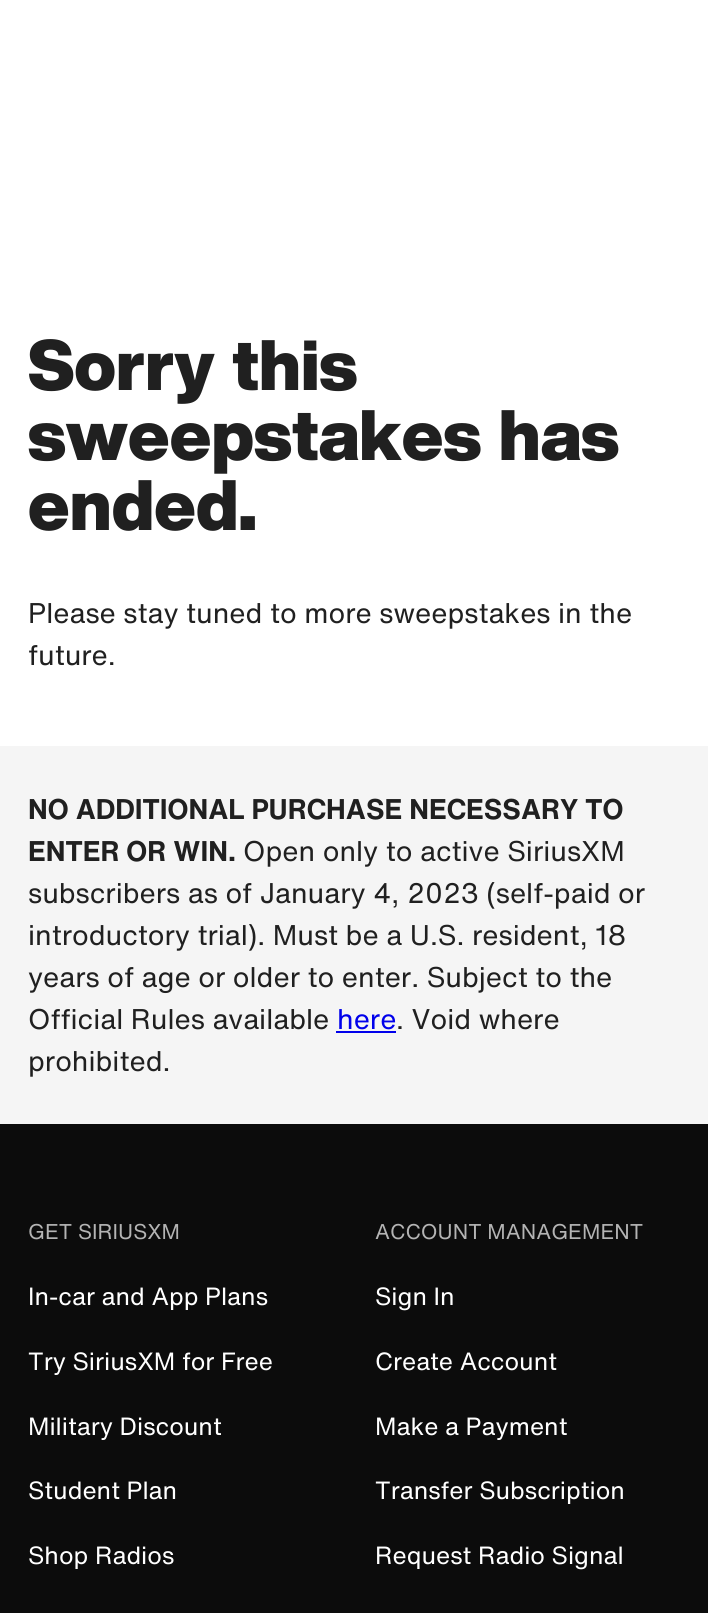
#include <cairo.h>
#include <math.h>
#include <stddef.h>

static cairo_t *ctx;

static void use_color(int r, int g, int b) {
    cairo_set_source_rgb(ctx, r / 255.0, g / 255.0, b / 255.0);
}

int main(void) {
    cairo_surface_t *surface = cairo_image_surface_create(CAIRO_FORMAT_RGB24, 708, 1613);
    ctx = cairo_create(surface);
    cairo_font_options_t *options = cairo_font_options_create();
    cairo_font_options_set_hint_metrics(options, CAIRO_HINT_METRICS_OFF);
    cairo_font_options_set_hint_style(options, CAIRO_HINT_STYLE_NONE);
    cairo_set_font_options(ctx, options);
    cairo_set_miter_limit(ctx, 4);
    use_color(255, 255, 255);
    cairo_paint(ctx);
    cairo_select_font_face(ctx, "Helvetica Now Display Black", CAIRO_FONT_SLANT_NORMAL, CAIRO_FONT_WEIGHT_NORMAL);
    cairo_set_font_size(ctx, 70);
    use_color(32, 32, 32);
    cairo_move_to(ctx, 28, 390);
    cairo_show_text(ctx, "Sorry this");
    cairo_move_to(ctx, 28, 460);
    cairo_show_text(ctx, "sweepstakes has");
    cairo_move_to(ctx, 28, 530);
    cairo_show_text(ctx, "ended.");
    cairo_select_font_face(ctx, "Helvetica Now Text", CAIRO_FONT_SLANT_NORMAL, CAIRO_FONT_WEIGHT_NORMAL);
    cairo_set_font_size(ctx, 28);
    cairo_move_to(ctx, 28, 623);
    cairo_show_text(ctx, "Please stay tuned to more sweepstakes in the");
    cairo_move_to(ctx, 28, 665);
    cairo_show_text(ctx, "future.");
    use_color(245, 245, 245);
    cairo_rectangle(ctx, 0, 746, 708, 378);
    cairo_fill(ctx);
    cairo_select_font_face(ctx, "Helvetica Now Text", CAIRO_FONT_SLANT_NORMAL, CAIRO_FONT_WEIGHT_BOLD);
    use_color(32, 32, 32);
    cairo_move_to(ctx, 28, 819);
    cairo_show_text(ctx, "NO ADDITIONAL PURCHASE NECESSARY TO");
    cairo_move_to(ctx, 28, 861);
    cairo_show_text(ctx, "ENTER OR WIN.");
    cairo_select_font_face(ctx, "Helvetica Now Text", CAIRO_FONT_SLANT_NORMAL, CAIRO_FONT_WEIGHT_NORMAL);
    cairo_move_to(ctx, 243, 861);
    cairo_show_text(ctx, "Open only to active SiriusXM");
    cairo_move_to(ctx, 28, 903);
    cairo_show_text(ctx, "subscribers as of January 4, 2023 (self-paid or");
    cairo_move_to(ctx, 28, 945);
    cairo_show_text(ctx, "introductory trial). Must be a U.S. resident, 18");
    cairo_move_to(ctx, 28, 987);
    cairo_show_text(ctx, "years of age or older to enter. Subject to the");
    cairo_move_to(ctx, 28, 1029);
    cairo_show_text(ctx, "Official Rules available");
    use_color(0, 0, 235);
    cairo_move_to(ctx, 337, 1029);
    cairo_show_text(ctx, "here");
    cairo_rectangle(ctx, 336, 1031, 60, 2);
    cairo_fill(ctx);
    use_color(32, 32, 32);
    cairo_move_to(ctx, 396, 1029);
    cairo_show_text(ctx, ". Void where");
    cairo_move_to(ctx, 28, 1071);
    cairo_show_text(ctx, "prohibited.");
    use_color(12, 12, 12);
    cairo_rectangle(ctx, 0, 1124, 708, 489);
    cairo_fill(ctx);
    cairo_set_font_size(ctx, 21);
    use_color(180, 180, 180);
    cairo_move_to(ctx, 28, 1239);
    cairo_show_text(ctx, "GET SIRIUSXM");
    cairo_set_font_size(ctx, 24.5);
    use_color(255, 255, 255);
    cairo_move_to(ctx, 28, 1305);
    cairo_show_text(ctx, "In-car and App Plans");
    cairo_move_to(ctx, 28, 1370);
    cairo_show_text(ctx, "Try SiriusXM for Free");
    cairo_move_to(ctx, 28, 1435);
    cairo_show_text(ctx, "Military Discount");
    cairo_move_to(ctx, 28, 1499);
    cairo_show_text(ctx, "Student Plan");
    cairo_move_to(ctx, 28, 1564);
    cairo_show_text(ctx, "Shop Radios");
    cairo_set_font_size(ctx, 21);
    use_color(180, 180, 180);
    cairo_move_to(ctx, 375, 1239);
    cairo_show_text(ctx, "ACCOUNT MANAGEMENT");
    cairo_set_font_size(ctx, 24.5);
    use_color(255, 255, 255);
    cairo_move_to(ctx, 375, 1305);
    cairo_show_text(ctx, "Sign In");
    cairo_move_to(ctx, 375, 1370);
    cairo_show_text(ctx, "Create Account");
    cairo_move_to(ctx, 375, 1435);
    cairo_show_text(ctx, "Make a Payment");
    cairo_move_to(ctx, 375, 1499);
    cairo_show_text(ctx, "Transfer Subscription");
    cairo_move_to(ctx, 375, 1564);
    cairo_show_text(ctx, "Request Radio Signal");
    cairo_surface_write_to_png(surface, "result.png");
    cairo_font_options_destroy(options);
    cairo_destroy(ctx);
    cairo_surface_destroy(surface);
    return 0;
}
